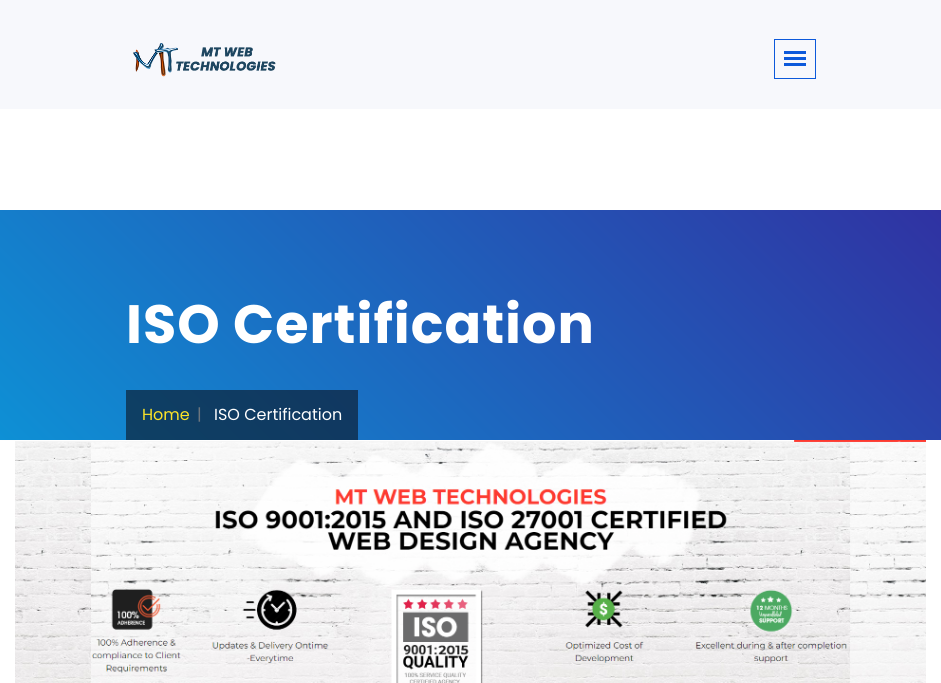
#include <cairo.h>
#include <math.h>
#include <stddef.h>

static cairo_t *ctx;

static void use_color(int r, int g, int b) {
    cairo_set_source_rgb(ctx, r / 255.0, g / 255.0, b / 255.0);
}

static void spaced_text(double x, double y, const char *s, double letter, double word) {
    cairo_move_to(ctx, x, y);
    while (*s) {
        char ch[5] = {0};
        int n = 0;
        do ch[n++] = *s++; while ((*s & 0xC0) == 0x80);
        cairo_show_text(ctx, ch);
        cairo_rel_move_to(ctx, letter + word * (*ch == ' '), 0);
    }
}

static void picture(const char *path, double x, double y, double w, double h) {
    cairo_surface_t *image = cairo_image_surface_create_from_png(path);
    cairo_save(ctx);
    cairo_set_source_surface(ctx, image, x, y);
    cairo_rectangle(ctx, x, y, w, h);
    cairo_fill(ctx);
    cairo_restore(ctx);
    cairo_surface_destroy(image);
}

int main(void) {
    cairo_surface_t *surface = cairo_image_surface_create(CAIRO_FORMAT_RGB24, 941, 683);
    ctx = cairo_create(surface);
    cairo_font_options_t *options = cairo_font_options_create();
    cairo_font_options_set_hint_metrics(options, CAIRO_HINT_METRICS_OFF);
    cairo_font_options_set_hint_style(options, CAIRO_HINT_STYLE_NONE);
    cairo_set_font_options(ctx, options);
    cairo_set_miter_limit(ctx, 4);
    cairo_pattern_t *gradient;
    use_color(255, 255, 255);
    cairo_paint(ctx);
    use_color(247, 248, 252);
    cairo_rectangle(ctx, 0, 0, 941, 109);
    cairo_fill(ctx);
    picture("img1.png", 133, 43, 143, 34);
    cairo_rectangle(ctx, 774.5, 39.5, 41, 39);
    use_color(12, 89, 219);
    cairo_set_line_width(ctx, 1);
    cairo_stroke(ctx);
    cairo_rectangle(ctx, 784, 51, 22, 3);
    cairo_fill(ctx);
    cairo_rectangle(ctx, 784, 57, 22, 3);
    cairo_fill(ctx);
    cairo_rectangle(ctx, 784, 63, 22, 3);
    cairo_fill(ctx);
    gradient = cairo_pattern_create_linear(178, 618, 763, 32);
    cairo_pattern_add_color_stop_rgba(gradient, 0, 0.055, 0.565, 0.835, 1);
    cairo_pattern_add_color_stop_rgba(gradient, 1, 0.188, 0.196, 0.635, 1);
    cairo_set_source(ctx, gradient);
    cairo_pattern_destroy(gradient);
    cairo_rectangle(ctx, 0, 210, 941, 230);
    cairo_fill(ctx);
    gradient = cairo_pattern_create_linear(178, 618, 763, 32);
    cairo_pattern_add_color_stop_rgba(gradient, 0, 0.047, 0.267, 0.404, 1);
    cairo_pattern_add_color_stop_rgba(gradient, 1, 0.102, 0.122, 0.325, 1);
    cairo_set_source(ctx, gradient);
    cairo_pattern_destroy(gradient);
    cairo_rectangle(ctx, 126, 390, 232, 50);
    cairo_fill(ctx);
    cairo_select_font_face(ctx, "Poppins", CAIRO_FONT_SLANT_NORMAL, CAIRO_FONT_WEIGHT_BOLD);
    cairo_set_font_size(ctx, 54);
    use_color(255, 255, 255);
    spaced_text(126, 343, "ISO Certification", 1, 0);
    cairo_select_font_face(ctx, "Poppins", CAIRO_FONT_SLANT_NORMAL, CAIRO_FONT_WEIGHT_NORMAL);
    cairo_set_font_size(ctx, 16);
    use_color(253, 228, 40);
    cairo_move_to(ctx, 142, 420);
    cairo_show_text(ctx, "Home");
    use_color(108, 117, 125);
    cairo_move_to(ctx, 197, 420);
    cairo_show_text(ctx, "|");
    use_color(255, 255, 255);
    cairo_move_to(ctx, 214, 420);
    cairo_show_text(ctx, "ISO Certification");
    picture("img2.png", 15, 440, 911, 243);
    cairo_surface_write_to_png(surface, "result.png");
    cairo_font_options_destroy(options);
    cairo_destroy(ctx);
    cairo_surface_destroy(surface);
    return 0;
}
